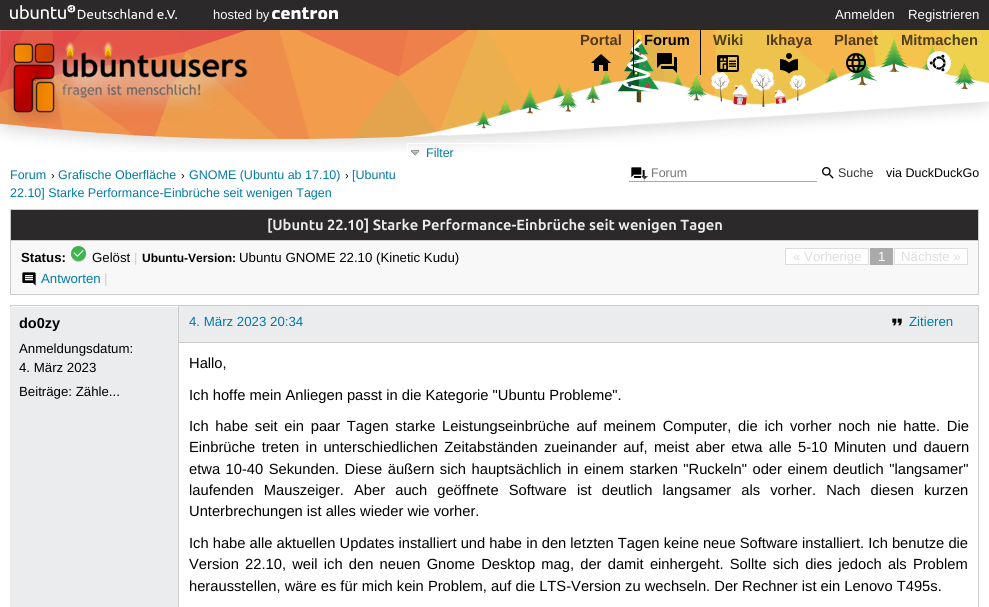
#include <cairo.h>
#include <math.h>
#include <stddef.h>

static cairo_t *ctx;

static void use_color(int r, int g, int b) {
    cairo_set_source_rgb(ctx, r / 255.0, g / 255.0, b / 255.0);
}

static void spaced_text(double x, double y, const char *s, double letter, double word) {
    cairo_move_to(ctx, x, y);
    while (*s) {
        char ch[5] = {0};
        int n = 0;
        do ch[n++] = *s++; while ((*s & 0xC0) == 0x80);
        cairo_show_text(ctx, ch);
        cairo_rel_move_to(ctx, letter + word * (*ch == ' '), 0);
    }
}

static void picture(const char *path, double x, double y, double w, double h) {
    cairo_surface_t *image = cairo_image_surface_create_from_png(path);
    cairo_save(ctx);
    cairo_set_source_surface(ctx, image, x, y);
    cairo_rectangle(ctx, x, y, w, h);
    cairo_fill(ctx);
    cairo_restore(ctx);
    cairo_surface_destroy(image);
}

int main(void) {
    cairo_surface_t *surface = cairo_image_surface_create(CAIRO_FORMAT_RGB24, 989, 607);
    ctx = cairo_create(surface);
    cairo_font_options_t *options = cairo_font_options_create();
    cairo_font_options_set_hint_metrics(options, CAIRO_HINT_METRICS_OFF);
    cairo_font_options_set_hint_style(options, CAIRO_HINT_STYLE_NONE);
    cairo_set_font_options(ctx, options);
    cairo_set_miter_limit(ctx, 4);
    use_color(255, 255, 255);
    cairo_paint(ctx);
    use_color(43, 41, 41);
    cairo_rectangle(ctx, 0, 0, 989, 30);
    cairo_fill(ctx);
    picture("img1.png", 10, 5, 167, 14);
    cairo_select_font_face(ctx, "Liberation Sans", CAIRO_FONT_SLANT_NORMAL, CAIRO_FONT_WEIGHT_NORMAL);
    cairo_set_font_size(ctx, 13);
    use_color(255, 255, 255);
    cairo_move_to(ctx, 213, 19);
    cairo_show_text(ctx, "hosted by");
    picture("img2.png", 272, 7, 66, 12);
    cairo_set_font_size(ctx, 13.25);
    cairo_move_to(ctx, 835, 19);
    cairo_show_text(ctx, "Anmelden");
    cairo_move_to(ctx, 908, 19);
    cairo_show_text(ctx, "Registrieren");
    picture("img3.png", 0, 30, 989, 122);
    picture("img4.png", 8, 41, 244, 83);
    cairo_select_font_face(ctx, "Liberation Sans", CAIRO_FONT_SLANT_NORMAL, CAIRO_FONT_WEIGHT_BOLD);
    cairo_set_font_size(ctx, 14.72);
    use_color(81, 57, 25);
    cairo_move_to(ctx, 580, 45);
    cairo_show_text(ctx, "Portal");
    picture("img5.png", 591, 54, 20, 17);
    use_color(0, 0, 0);
    cairo_rectangle(ctx, 700, 30, 1, 45);
    cairo_fill(ctx);
    cairo_rectangle(ctx, 633, 30, 1, 45);
    cairo_fill(ctx);
    cairo_move_to(ctx, 644, 45);
    cairo_show_text(ctx, "Forum");
    picture("img6.png", 657, 53, 20, 20);
    use_color(79, 64, 25);
    cairo_move_to(ctx, 713, 45);
    cairo_show_text(ctx, "Wiki");
    picture("img7.png", 717, 55, 22, 17);
    use_color(81, 57, 25);
    cairo_move_to(ctx, 766, 45);
    cairo_show_text(ctx, "Ikhaya");
    picture("img8.png", 780, 53, 18, 21);
    cairo_move_to(ctx, 834, 45);
    cairo_show_text(ctx, "Planet");
    picture("img9.png", 846, 53, 20, 20);
    use_color(79, 64, 25);
    cairo_move_to(ctx, 901, 45);
    cairo_show_text(ctx, "Mitmachen");
    picture("img10.png", 927, 51, 24, 23);
    cairo_rectangle(ctx, 407.5, 143.5, 241, 22);
    use_color(255, 255, 255);
    cairo_set_line_width(ctx, 1);
    cairo_stroke(ctx);
    picture("img11.png", 411, 150, 9, 6);
    cairo_select_font_face(ctx, "Liberation Sans", CAIRO_FONT_SLANT_NORMAL, CAIRO_FONT_WEIGHT_NORMAL);
    cairo_set_font_size(ctx, 12.5);
    use_color(0, 122, 166);
    cairo_move_to(ctx, 426, 157);
    cairo_show_text(ctx, "Filter");
    cairo_move_to(ctx, 10, 179);
    cairo_show_text(ctx, "Forum");
    cairo_set_font_size(ctx, 11);
    use_color(0, 0, 0);
    cairo_move_to(ctx, 51, 179);
    cairo_show_text(ctx, "›");
    cairo_set_font_size(ctx, 12.5);
    use_color(0, 122, 166);
    cairo_move_to(ctx, 58, 179);
    cairo_show_text(ctx, "Grafische Oberfläche");
    cairo_set_font_size(ctx, 11);
    use_color(0, 0, 0);
    cairo_move_to(ctx, 181, 179);
    cairo_show_text(ctx, "›");
    cairo_set_font_size(ctx, 12.5);
    use_color(0, 122, 166);
    cairo_move_to(ctx, 189, 179);
    cairo_show_text(ctx, "GNOME (Ubuntu ab 17.10)");
    cairo_set_font_size(ctx, 11);
    use_color(0, 0, 0);
    cairo_move_to(ctx, 345, 179);
    cairo_show_text(ctx, "›");
    cairo_set_font_size(ctx, 12.5);
    use_color(0, 122, 166);
    cairo_move_to(ctx, 352, 179);
    cairo_show_text(ctx, "[Ubuntu");
    cairo_move_to(ctx, 10, 197);
    cairo_show_text(ctx, "22.10] Starke Performance-Einbrüche seit wenigen Tagen");
    picture("img13.png", 631, 167, 14, 14);
    picture("img12.png", 641, 176, 7, 4);
    use_color(170, 170, 170);
    cairo_rectangle(ctx, 629, 181, 188, 1);
    cairo_fill(ctx);
    use_color(117, 117, 117);
    cairo_move_to(ctx, 651, 177);
    cairo_show_text(ctx, "Forum");
    picture("img14.png", 822, 167, 12, 12);
    use_color(51, 51, 51);
    cairo_move_to(ctx, 838, 177);
    cairo_show_text(ctx, "Suche");
    use_color(0, 0, 0);
    cairo_move_to(ctx, 886, 177);
    cairo_show_text(ctx, "via DuckDuckGo");
    use_color(248, 248, 248);
    cairo_rectangle(ctx, 11, 241, 967, 53);
    cairo_fill(ctx);
    cairo_rectangle(ctx, 10.5, 209.5, 968, 85);
    use_color(204, 204, 204);
    cairo_stroke(ctx);
    use_color(43, 41, 41);
    cairo_rectangle(ctx, 11, 210, 967, 30);
    cairo_fill(ctx);
    use_color(204, 204, 204);
    cairo_rectangle(ctx, 11, 240, 967, 1);
    cairo_fill(ctx);
    cairo_select_font_face(ctx, "Ubuntu", CAIRO_FONT_SLANT_NORMAL, CAIRO_FONT_WEIGHT_BOLD);
    cairo_set_font_size(ctx, 14.72);
    use_color(234, 236, 238);
    cairo_move_to(ctx, 267, 230);
    cairo_show_text(ctx, "[Ubuntu 22.10] Starke Performance-Einbrüche seit wenigen Tagen");
    cairo_select_font_face(ctx, "Liberation Sans", CAIRO_FONT_SLANT_NORMAL, CAIRO_FONT_WEIGHT_BOLD);
    cairo_set_font_size(ctx, 13.25);
    use_color(0, 0, 0);
    cairo_move_to(ctx, 21, 262);
    cairo_show_text(ctx, "Status:");
    picture("img15.png", 71, 246, 15, 16);
    cairo_select_font_face(ctx, "Liberation Sans", CAIRO_FONT_SLANT_NORMAL, CAIRO_FONT_WEIGHT_NORMAL);
    cairo_move_to(ctx, 92, 262);
    cairo_show_text(ctx, "Gelöst");
    use_color(204, 204, 204);
    cairo_move_to(ctx, 134, 262);
    cairo_show_text(ctx, "|");
    cairo_select_font_face(ctx, "Liberation Sans", CAIRO_FONT_SLANT_NORMAL, CAIRO_FONT_WEIGHT_BOLD);
    cairo_set_font_size(ctx, 12);
    use_color(0, 0, 0);
    cairo_move_to(ctx, 142, 262);
    cairo_show_text(ctx, "Ubuntu-Version:");
    cairo_select_font_face(ctx, "Liberation Sans", CAIRO_FONT_SLANT_NORMAL, CAIRO_FONT_WEIGHT_NORMAL);
    cairo_set_font_size(ctx, 13.25);
    cairo_move_to(ctx, 239, 262);
    cairo_show_text(ctx, "Ubuntu GNOME 22.10 (Kinetic Kudu)");
    use_color(255, 255, 255);
    cairo_rectangle(ctx, 785.5, 248.5, 83, 16);
    cairo_fill_preserve(ctx);
    use_color(221, 221, 221);
    cairo_stroke(ctx);
    cairo_move_to(ctx, 793, 261);
    cairo_show_text(ctx, "« Vorherige");
    use_color(170, 170, 170);
    cairo_rectangle(ctx, 870, 248, 23, 17);
    cairo_fill(ctx);
    use_color(255, 255, 255);
    cairo_move_to(ctx, 878, 261);
    cairo_show_text(ctx, "1");
    cairo_rectangle(ctx, 894.5, 248.5, 73, 16);
    cairo_fill_preserve(ctx);
    use_color(221, 221, 221);
    cairo_stroke(ctx);
    cairo_move_to(ctx, 901, 261);
    cairo_show_text(ctx, "Nächste »");
    picture("img16.png", 22, 272, 14, 14);
    use_color(0, 122, 166);
    cairo_move_to(ctx, 41, 283);
    cairo_show_text(ctx, "Antworten");
    use_color(204, 204, 204);
    cairo_move_to(ctx, 104, 283);
    cairo_show_text(ctx, "|");
    cairo_rectangle(ctx, 10, 305, 969, 1);
    cairo_fill(ctx);
    cairo_rectangle(ctx, 978, 305, 1, 302);
    cairo_fill(ctx);
    cairo_rectangle(ctx, 10, 305, 1, 2);
    cairo_fill(ctx);
    cairo_rectangle(ctx, 178, 305, 1, 302);
    cairo_fill(ctx);
    use_color(234, 236, 238);
    cairo_rectangle(ctx, 10, 307, 168, 300);
    cairo_fill(ctx);
    cairo_select_font_face(ctx, "Liberation Sans", CAIRO_FONT_SLANT_NORMAL, CAIRO_FONT_WEIGHT_BOLD);
    cairo_set_font_size(ctx, 14.5);
    use_color(0, 0, 0);
    cairo_move_to(ctx, 19, 328);
    cairo_show_text(ctx, "do0zy");
    cairo_select_font_face(ctx, "Liberation Sans", CAIRO_FONT_SLANT_NORMAL, CAIRO_FONT_WEIGHT_NORMAL);
    cairo_set_font_size(ctx, 13.25);
    cairo_move_to(ctx, 19, 353);
    cairo_show_text(ctx, "Anmeldungsdatum:");
    cairo_move_to(ctx, 19, 372);
    cairo_show_text(ctx, "4. März 2023");
    cairo_move_to(ctx, 19, 396);
    cairo_show_text(ctx, "Beiträge: Zähle...");
    use_color(234, 236, 238);
    cairo_rectangle(ctx, 179, 306, 799, 36);
    cairo_fill(ctx);
    use_color(204, 204, 204);
    cairo_rectangle(ctx, 179, 342, 799, 1);
    cairo_fill(ctx);
    use_color(0, 122, 166);
    cairo_move_to(ctx, 189, 326);
    cairo_show_text(ctx, "4. März 2023 20:34");
    picture("img17.png", 892, 318, 10, 8);
    cairo_move_to(ctx, 909, 326);
    cairo_show_text(ctx, "Zitieren");
    cairo_set_font_size(ctx, 14.72);
    use_color(0, 0, 0);
    cairo_move_to(ctx, 189, 368);
    cairo_show_text(ctx, "Hallo,");
    cairo_move_to(ctx, 189, 400);
    cairo_show_text(ctx, "Ich hoffe mein Anliegen passt in die Kategorie \"Ubuntu Probleme\".");
    spaced_text(189, 431, "Ich habe seit ein paar Tagen starke Leistungseinbrüche auf meinem Computer, die ich vorher noch nie hatte. Die", 0, 2.6);
    spaced_text(189, 452, "Einbrüche treten in unterschiedlichen Zeitabständen zueinander auf, meist aber etwa alle 5-10 Minuten und dauern", 0, 2.25);
    spaced_text(189, 474, "etwa 10-40 Sekunden. Diese äußern sich hauptsächlich in einem starken \"Ruckeln\" oder einem deutlich \"langsamer\"", 0, 1.4);
    spaced_text(189, 495, "laufenden Mauszeiger. Aber auch geöffnete Software ist deutlich langsamer als vorher. Nach diesen kurzen", 0, 6);
    cairo_move_to(ctx, 189, 516);
    cairo_show_text(ctx, "Unterbrechungen ist alles wieder wie vorher.");
    cairo_move_to(ctx, 189, 548);
    cairo_show_text(ctx, "Ich habe alle aktuellen Updates installiert und habe in den letzten Tagen keine neue Software installiert. Ich benutze die");
    spaced_text(189, 569, "Version 22.10, weil ich den neuen Gnome Desktop mag, der damit einhergeht. Sollte sich dies jedoch als Problem", 0, 2.1);
    cairo_move_to(ctx, 189, 591);
    cairo_show_text(ctx, "herausstellen, wäre es für mich kein Problem, auf die LTS-Version zu wechseln. Der Rechner ist ein Lenovo T495s.");
    cairo_surface_write_to_png(surface, "result.png");
    cairo_font_options_destroy(options);
    cairo_destroy(ctx);
    cairo_surface_destroy(surface);
    return 0;
}
